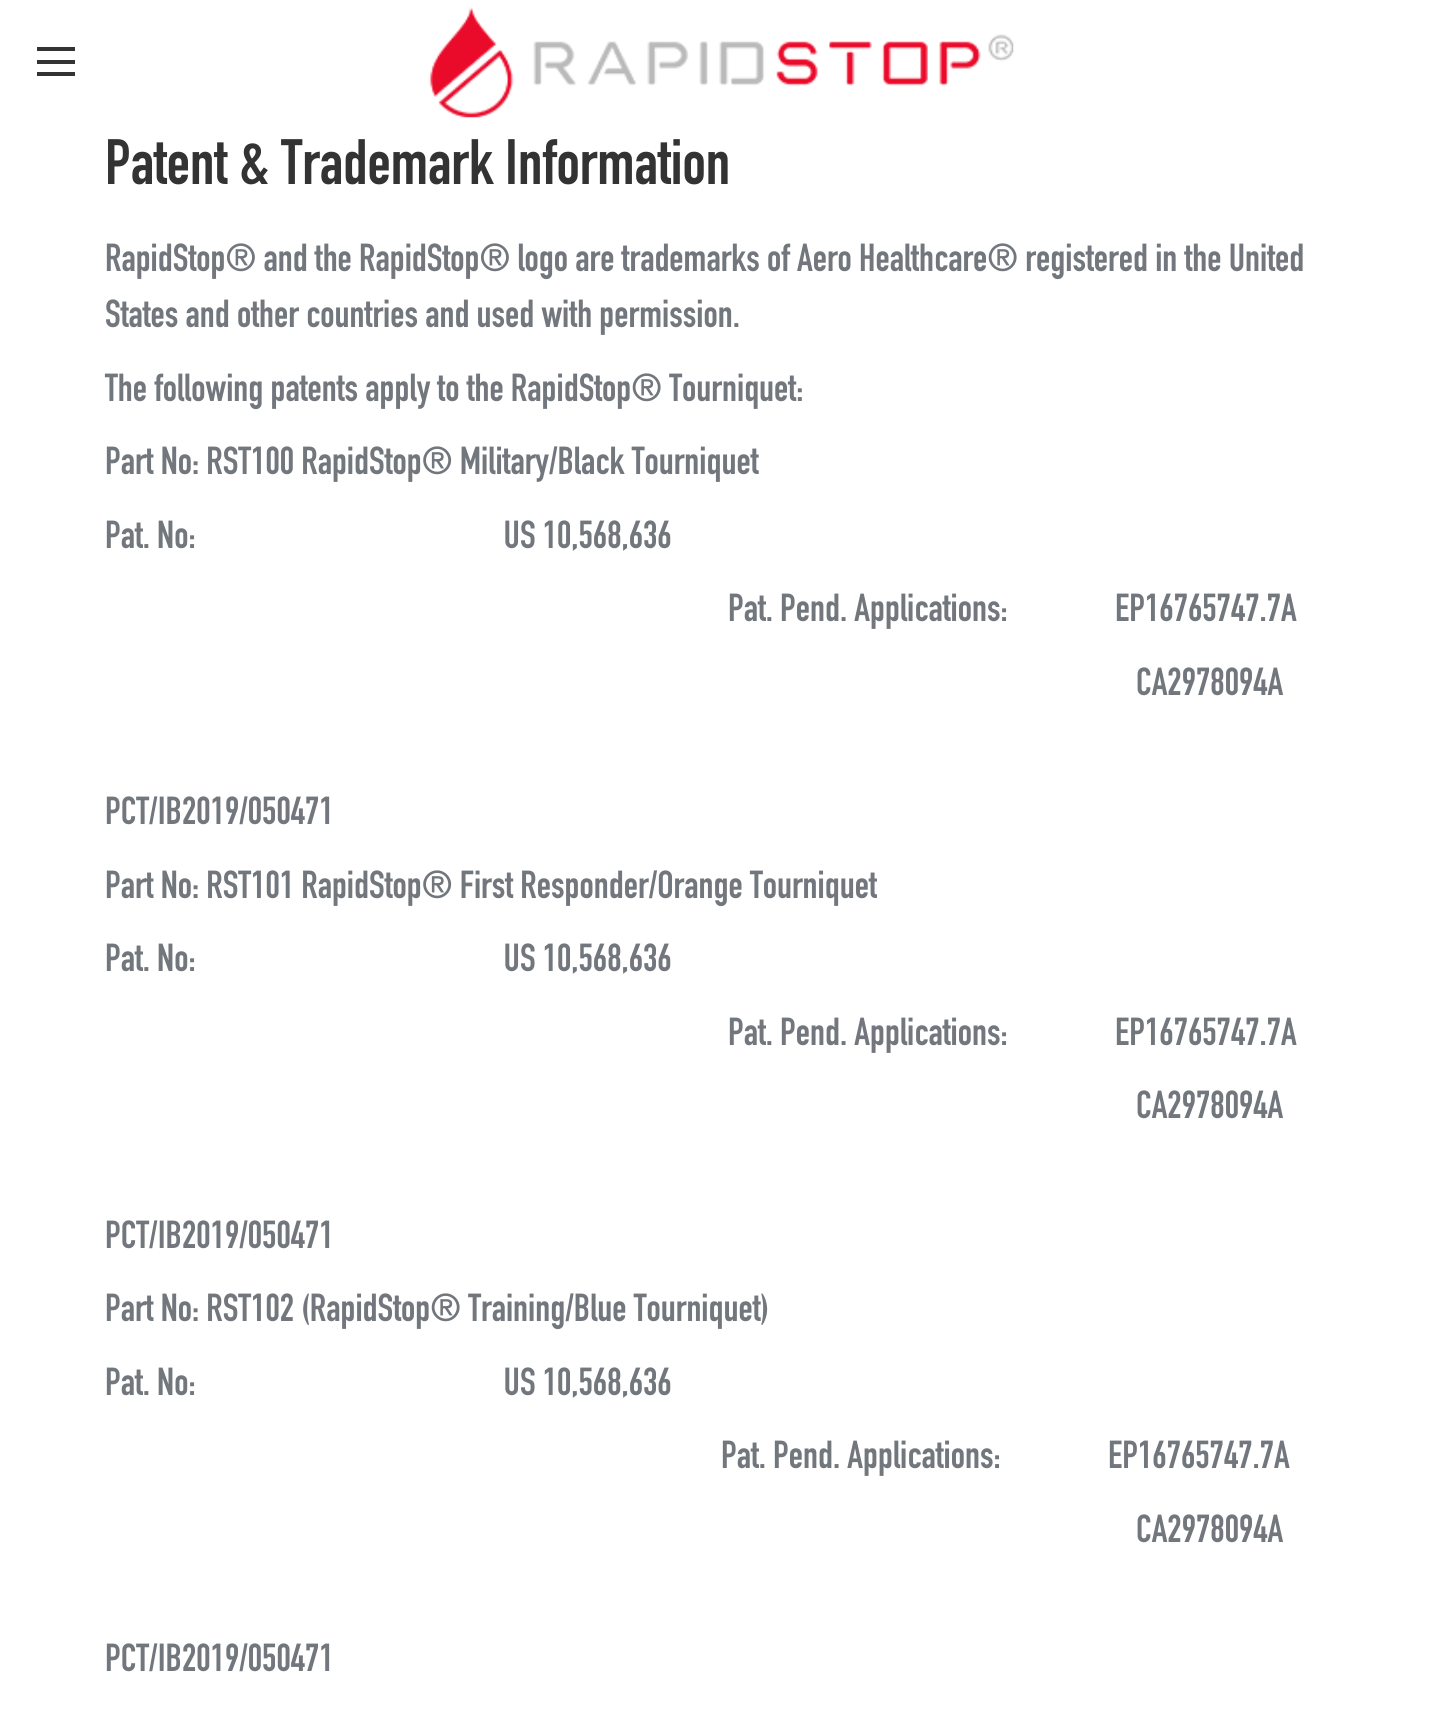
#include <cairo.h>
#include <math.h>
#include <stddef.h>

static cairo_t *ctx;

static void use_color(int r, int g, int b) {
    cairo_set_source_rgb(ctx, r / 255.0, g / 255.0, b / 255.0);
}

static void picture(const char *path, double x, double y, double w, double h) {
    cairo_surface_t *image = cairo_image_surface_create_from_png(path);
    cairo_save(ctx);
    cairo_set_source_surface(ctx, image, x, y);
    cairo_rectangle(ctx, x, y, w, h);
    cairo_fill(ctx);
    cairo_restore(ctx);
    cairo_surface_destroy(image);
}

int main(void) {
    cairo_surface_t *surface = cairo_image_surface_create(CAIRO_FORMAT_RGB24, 1441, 1720);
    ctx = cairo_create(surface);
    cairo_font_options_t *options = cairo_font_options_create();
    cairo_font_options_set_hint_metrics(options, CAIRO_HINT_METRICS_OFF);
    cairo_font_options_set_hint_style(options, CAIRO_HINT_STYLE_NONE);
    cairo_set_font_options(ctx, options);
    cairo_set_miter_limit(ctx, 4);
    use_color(255, 255, 255);
    cairo_paint(ctx);
    use_color(51, 51, 51);
    cairo_rectangle(ctx, 37, 47, 38, 4);
    cairo_fill(ctx);
    cairo_rectangle(ctx, 37, 60, 38, 4);
    cairo_fill(ctx);
    cairo_rectangle(ctx, 37, 72, 38, 4);
    cairo_fill(ctx);
    picture("img1.png", 430, 7, 584, 111);
    cairo_select_font_face(ctx, "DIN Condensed", CAIRO_FONT_SLANT_NORMAL, CAIRO_FONT_WEIGHT_BOLD);
    cairo_set_font_size(ctx, 63);
    cairo_move_to(ctx, 105, 184);
    cairo_show_text(ctx, "Patent & Trademark Information");
    cairo_set_font_size(ctx, 38.5);
    use_color(114, 119, 125);
    cairo_move_to(ctx, 105, 271);
    cairo_show_text(ctx, "RapidStop® and the RapidStop® logo are trademarks of Aero Healthcare® registered in the United");
    cairo_move_to(ctx, 105, 327);
    cairo_show_text(ctx, "States and other countries and used with permission.");
    cairo_move_to(ctx, 105, 401);
    cairo_show_text(ctx, "The following patents apply to the RapidStop® Tourniquet:");
    cairo_move_to(ctx, 105, 474);
    cairo_show_text(ctx, "Part No: RST100 RapidStop® Military/Black Tourniquet");
    cairo_move_to(ctx, 105, 548);
    cairo_show_text(ctx, "Pat. No:                                           US 10,568,636");
    cairo_move_to(ctx, 728, 621);
    cairo_show_text(ctx, "Pat. Pend. Applications:               EP16765747.7A");
    cairo_move_to(ctx, 1136, 695);
    cairo_show_text(ctx, "CA2978094A");
    cairo_move_to(ctx, 105, 824);
    cairo_show_text(ctx, "PCT/IB2019/050471");
    cairo_move_to(ctx, 105, 898);
    cairo_show_text(ctx, "Part No: RST101 RapidStop® First Responder/Orange Tourniquet");
    cairo_move_to(ctx, 105, 971);
    cairo_show_text(ctx, "Pat. No:                                           US 10,568,636");
    cairo_move_to(ctx, 728, 1045);
    cairo_show_text(ctx, "Pat. Pend. Applications:               EP16765747.7A");
    cairo_move_to(ctx, 1136, 1118);
    cairo_show_text(ctx, "CA2978094A");
    cairo_move_to(ctx, 105, 1248);
    cairo_show_text(ctx, "PCT/IB2019/050471");
    cairo_move_to(ctx, 105, 1321);
    cairo_show_text(ctx, "Part No: RST102 (RapidStop® Training/Blue Tourniquet)");
    cairo_move_to(ctx, 105, 1395);
    cairo_show_text(ctx, "Pat. No:                                           US 10,568,636");
    cairo_move_to(ctx, 721, 1468);
    cairo_show_text(ctx, "Pat. Pend. Applications:               EP16765747.7A");
    cairo_move_to(ctx, 1136, 1542);
    cairo_show_text(ctx, "CA2978094A");
    cairo_move_to(ctx, 105, 1671);
    cairo_show_text(ctx, "PCT/IB2019/050471");
    cairo_surface_write_to_png(surface, "result.png");
    cairo_font_options_destroy(options);
    cairo_destroy(ctx);
    cairo_surface_destroy(surface);
    return 0;
}
